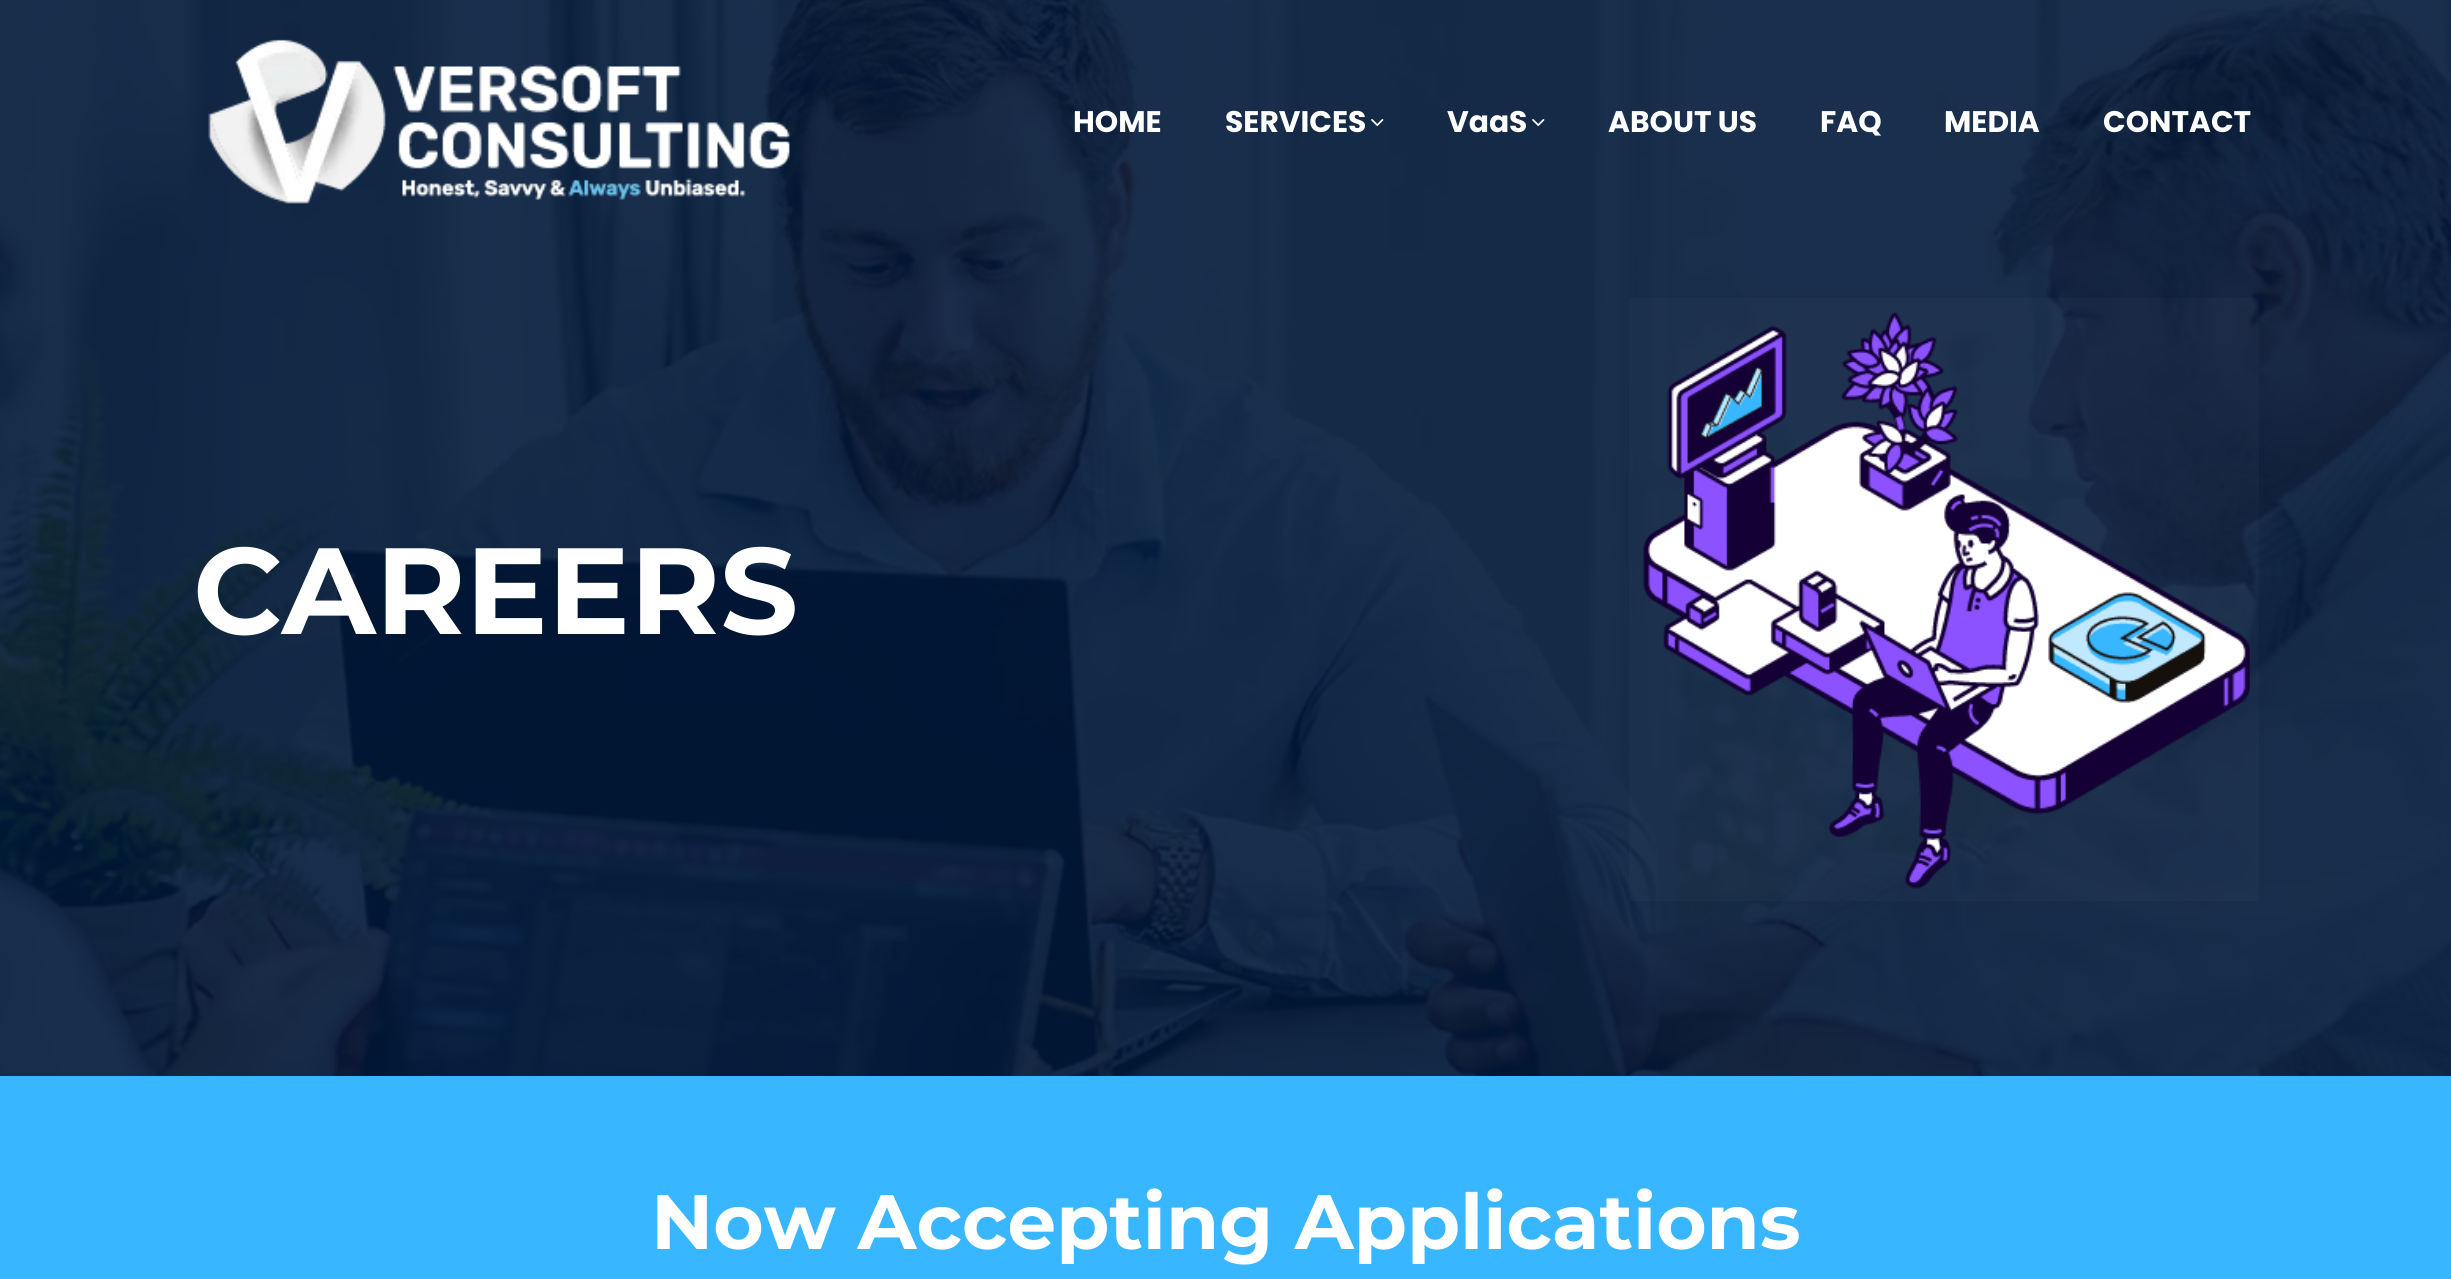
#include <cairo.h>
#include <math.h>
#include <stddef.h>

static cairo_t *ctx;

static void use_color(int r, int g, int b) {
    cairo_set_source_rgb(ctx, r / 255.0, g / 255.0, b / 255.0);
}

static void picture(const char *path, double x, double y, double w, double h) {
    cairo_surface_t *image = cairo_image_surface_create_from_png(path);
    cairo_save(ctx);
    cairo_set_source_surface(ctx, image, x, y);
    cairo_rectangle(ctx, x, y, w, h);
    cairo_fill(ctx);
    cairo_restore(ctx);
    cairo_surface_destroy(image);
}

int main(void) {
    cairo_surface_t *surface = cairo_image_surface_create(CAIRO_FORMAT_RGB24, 2451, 1279);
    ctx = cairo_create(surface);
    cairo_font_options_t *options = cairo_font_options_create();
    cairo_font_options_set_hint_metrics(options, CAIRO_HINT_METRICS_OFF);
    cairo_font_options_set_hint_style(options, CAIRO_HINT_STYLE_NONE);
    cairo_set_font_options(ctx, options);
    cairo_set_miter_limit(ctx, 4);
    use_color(255, 255, 255);
    cairo_paint(ctx);
    picture("img4.png", 0, 0, 2451, 1076);
    picture("img1.png", 208, 39, 582, 165);
    cairo_select_font_face(ctx, "Poppins", CAIRO_FONT_SLANT_NORMAL, CAIRO_FONT_WEIGHT_BOLD);
    cairo_set_font_size(ctx, 29.75);
    use_color(255, 255, 255);
    cairo_move_to(ctx, 1073, 132);
    cairo_show_text(ctx, "HOME");
    cairo_move_to(ctx, 1225, 132);
    cairo_show_text(ctx, "SERVICES");
    picture("img2.png", 1371, 119, 13, 7);
    cairo_move_to(ctx, 1447, 132);
    cairo_show_text(ctx, "VaaS");
    picture("img3.png", 1532, 119, 13, 7);
    cairo_move_to(ctx, 1608, 132);
    cairo_show_text(ctx, "ABOUT US");
    cairo_move_to(ctx, 1820, 132);
    cairo_show_text(ctx, "FAQ");
    cairo_move_to(ctx, 1944, 132);
    cairo_show_text(ctx, "MEDIA");
    cairo_move_to(ctx, 2103, 132);
    cairo_show_text(ctx, "CONTACT");
    cairo_select_font_face(ctx, "Montserrat", CAIRO_FONT_SLANT_NORMAL, CAIRO_FONT_WEIGHT_BOLD);
    cairo_set_font_size(ctx, 122.5);
    cairo_move_to(ctx, 193, 634);
    cairo_show_text(ctx, "CAREERS");
    cairo_set_source_rgba(ctx, 0.522, 0.525, 0.549, 0.05);
    cairo_rectangle(ctx, 1629, 298, 630, 603);
    cairo_fill(ctx);
    picture("img5.png", 1643, 311, 607, 578);
    use_color(56, 182, 255);
    cairo_rectangle(ctx, 0, 1076, 2451, 203);
    cairo_fill(ctx);
    cairo_set_font_size(ctx, 77);
    use_color(255, 255, 255);
    cairo_move_to(ctx, 651, 1249);
    cairo_show_text(ctx, "Now Accepting Applications");
    cairo_surface_write_to_png(surface, "result.png");
    cairo_font_options_destroy(options);
    cairo_destroy(ctx);
    cairo_surface_destroy(surface);
    return 0;
}
